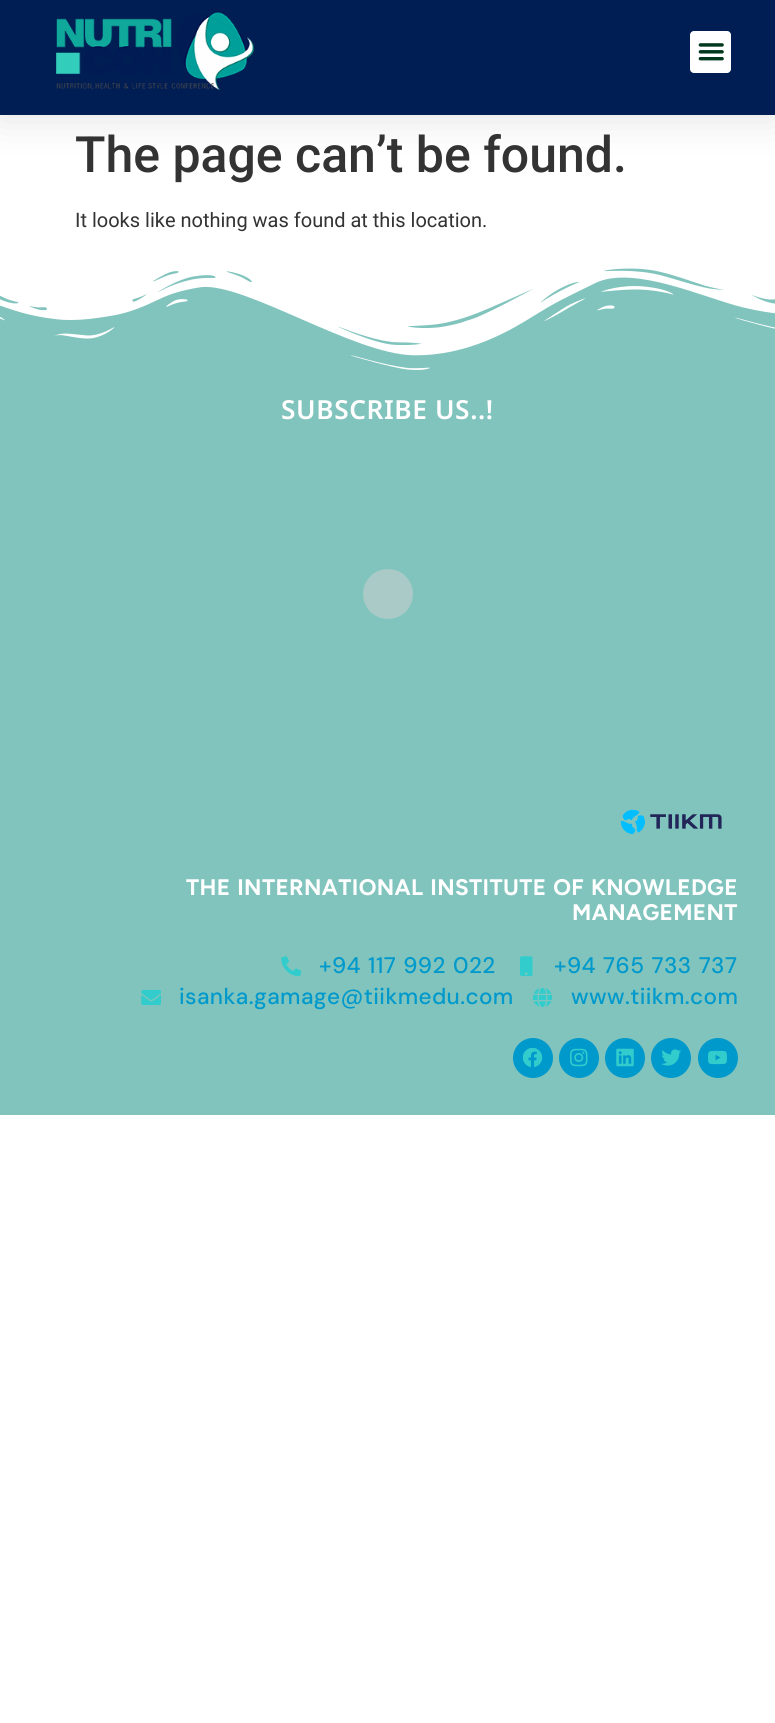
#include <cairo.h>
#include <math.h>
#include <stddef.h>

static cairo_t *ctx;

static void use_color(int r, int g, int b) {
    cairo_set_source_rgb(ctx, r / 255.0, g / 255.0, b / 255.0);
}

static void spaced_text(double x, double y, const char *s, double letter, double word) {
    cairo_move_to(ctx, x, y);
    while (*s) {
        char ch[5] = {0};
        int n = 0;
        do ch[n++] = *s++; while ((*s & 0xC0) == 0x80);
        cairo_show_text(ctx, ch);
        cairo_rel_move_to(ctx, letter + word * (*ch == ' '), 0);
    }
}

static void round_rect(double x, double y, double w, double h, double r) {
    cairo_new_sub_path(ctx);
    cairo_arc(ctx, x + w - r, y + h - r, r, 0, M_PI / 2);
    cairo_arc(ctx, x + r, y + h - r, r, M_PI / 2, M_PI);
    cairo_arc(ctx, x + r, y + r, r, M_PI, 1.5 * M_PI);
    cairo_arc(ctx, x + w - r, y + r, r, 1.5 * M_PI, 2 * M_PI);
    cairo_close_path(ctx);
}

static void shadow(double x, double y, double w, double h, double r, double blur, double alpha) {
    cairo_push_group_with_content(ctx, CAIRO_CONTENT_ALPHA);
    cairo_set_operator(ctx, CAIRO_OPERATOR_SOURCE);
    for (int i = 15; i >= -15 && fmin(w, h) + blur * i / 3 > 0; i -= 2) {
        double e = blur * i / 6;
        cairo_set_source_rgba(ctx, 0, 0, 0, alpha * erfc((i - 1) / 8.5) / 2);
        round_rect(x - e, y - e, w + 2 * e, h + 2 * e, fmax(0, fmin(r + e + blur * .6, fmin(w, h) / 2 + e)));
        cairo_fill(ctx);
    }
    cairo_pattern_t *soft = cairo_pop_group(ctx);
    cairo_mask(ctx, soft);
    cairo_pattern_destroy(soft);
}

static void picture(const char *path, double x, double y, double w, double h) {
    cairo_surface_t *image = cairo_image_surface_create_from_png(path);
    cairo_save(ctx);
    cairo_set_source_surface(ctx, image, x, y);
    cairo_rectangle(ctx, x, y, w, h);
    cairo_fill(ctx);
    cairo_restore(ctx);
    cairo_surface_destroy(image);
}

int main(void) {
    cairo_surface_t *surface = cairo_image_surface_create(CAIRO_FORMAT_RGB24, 775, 1723);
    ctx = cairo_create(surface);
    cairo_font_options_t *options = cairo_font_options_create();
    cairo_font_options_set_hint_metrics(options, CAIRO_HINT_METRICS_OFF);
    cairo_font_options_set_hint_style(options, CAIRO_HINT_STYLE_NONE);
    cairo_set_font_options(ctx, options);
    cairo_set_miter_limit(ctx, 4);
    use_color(255, 255, 255);
    cairo_paint(ctx);
    use_color(0, 0, 0);
    shadow(0, 6, 775, 115, 0, 19, 0.1);
    use_color(0, 29, 84);
    cairo_rectangle(ctx, 0, 0, 775, 115);
    cairo_fill(ctx);
    picture("img1.png", 56, 12, 198, 78);
    use_color(255, 255, 255);
    round_rect(690, 31, 41, 42, 4);
    cairo_fill(ctx);
    picture("img2.png", 698, 43, 26, 18);
    cairo_select_font_face(ctx, "Roboto Medium", CAIRO_FONT_SLANT_NORMAL, CAIRO_FONT_WEIGHT_NORMAL);
    cairo_set_font_size(ctx, 50);
    use_color(51, 51, 51);
    cairo_move_to(ctx, 75, 172);
    cairo_show_text(ctx, "The page can’t be found.");
    cairo_select_font_face(ctx, "Roboto", CAIRO_FONT_SLANT_NORMAL, CAIRO_FONT_WEIGHT_NORMAL);
    cairo_set_font_size(ctx, 20);
    cairo_move_to(ctx, 75, 227);
    cairo_show_text(ctx, "It looks like nothing was found at this location.");
    use_color(129, 196, 189);
    cairo_rectangle(ctx, 0, 268, 775, 847);
    cairo_fill(ctx);
    picture("img3.png", 0, 254, 775, 116);
    cairo_select_font_face(ctx, "Noto Sans SemiBold", CAIRO_FONT_SLANT_NORMAL, CAIRO_FONT_WEIGHT_NORMAL);
    cairo_set_font_size(ctx, 26.25);
    use_color(255, 255, 255);
    spaced_text(281, 419, "SUBSCRIBE US..!", 0.6, 0);
    use_color(169, 202, 199);
    cairo_new_path(ctx);
    cairo_arc(ctx, 388, 594, 25, 0, 2 * M_PI);
    cairo_fill(ctx);
    picture("img4.png", 620, 809, 102, 26);
    cairo_select_font_face(ctx, "Figtree", CAIRO_FONT_SLANT_NORMAL, CAIRO_FONT_WEIGHT_BOLD);
    cairo_set_font_size(ctx, 22.5);
    use_color(255, 255, 255);
    spaced_text(186, 895, "THE INTERNATIONAL INSTITUTE OF KNOWLEDGE", 0.4, 1);
    spaced_text(572, 920, "MANAGEMENT", 0.4, 0);
    picture("img5.png", 281, 956, 20, 20);
    cairo_select_font_face(ctx, "DM Sans Medium", CAIRO_FONT_SLANT_NORMAL, CAIRO_FONT_WEIGHT_NORMAL);
    use_color(0, 153, 204);
    spaced_text(319, 973, "+94 117 992 022", 0.4, 1);
    picture("img6.png", 520, 956, 13, 20);
    spaced_text(554, 973, "+94 765 733 737", 0.4, 1);
    picture("img7.png", 141, 990, 20, 15);
    spaced_text(179, 1004, "isanka.gamage@tiikmedu.com", 0.4, 0);
    picture("img8.png", 533, 988, 20, 20);
    spaced_text(571, 1004, "www.tiikm.com", 0.4, 0);
    cairo_new_path(ctx);
    cairo_arc(ctx, 533, 1058, 20, 0, 2 * M_PI);
    cairo_fill(ctx);
    picture("img9.png", 523, 1048, 20, 19);
    cairo_arc(ctx, 579, 1058, 20, 0, 2 * M_PI);
    cairo_fill(ctx);
    picture("img10.png", 570, 1048, 18, 19);
    cairo_arc(ctx, 625, 1058, 20, 0, 2 * M_PI);
    cairo_fill(ctx);
    picture("img11.png", 616, 1048, 18, 19);
    cairo_arc(ctx, 671, 1058, 20, 0, 2 * M_PI);
    cairo_fill(ctx);
    picture("img12.png", 661, 1049, 20, 17);
    cairo_arc(ctx, 718, 1058, 20, 0, 2 * M_PI);
    cairo_fill(ctx);
    picture("img13.png", 708, 1050, 19, 15);
    cairo_surface_write_to_png(surface, "result.png");
    cairo_font_options_destroy(options);
    cairo_destroy(ctx);
    cairo_surface_destroy(surface);
    return 0;
}
